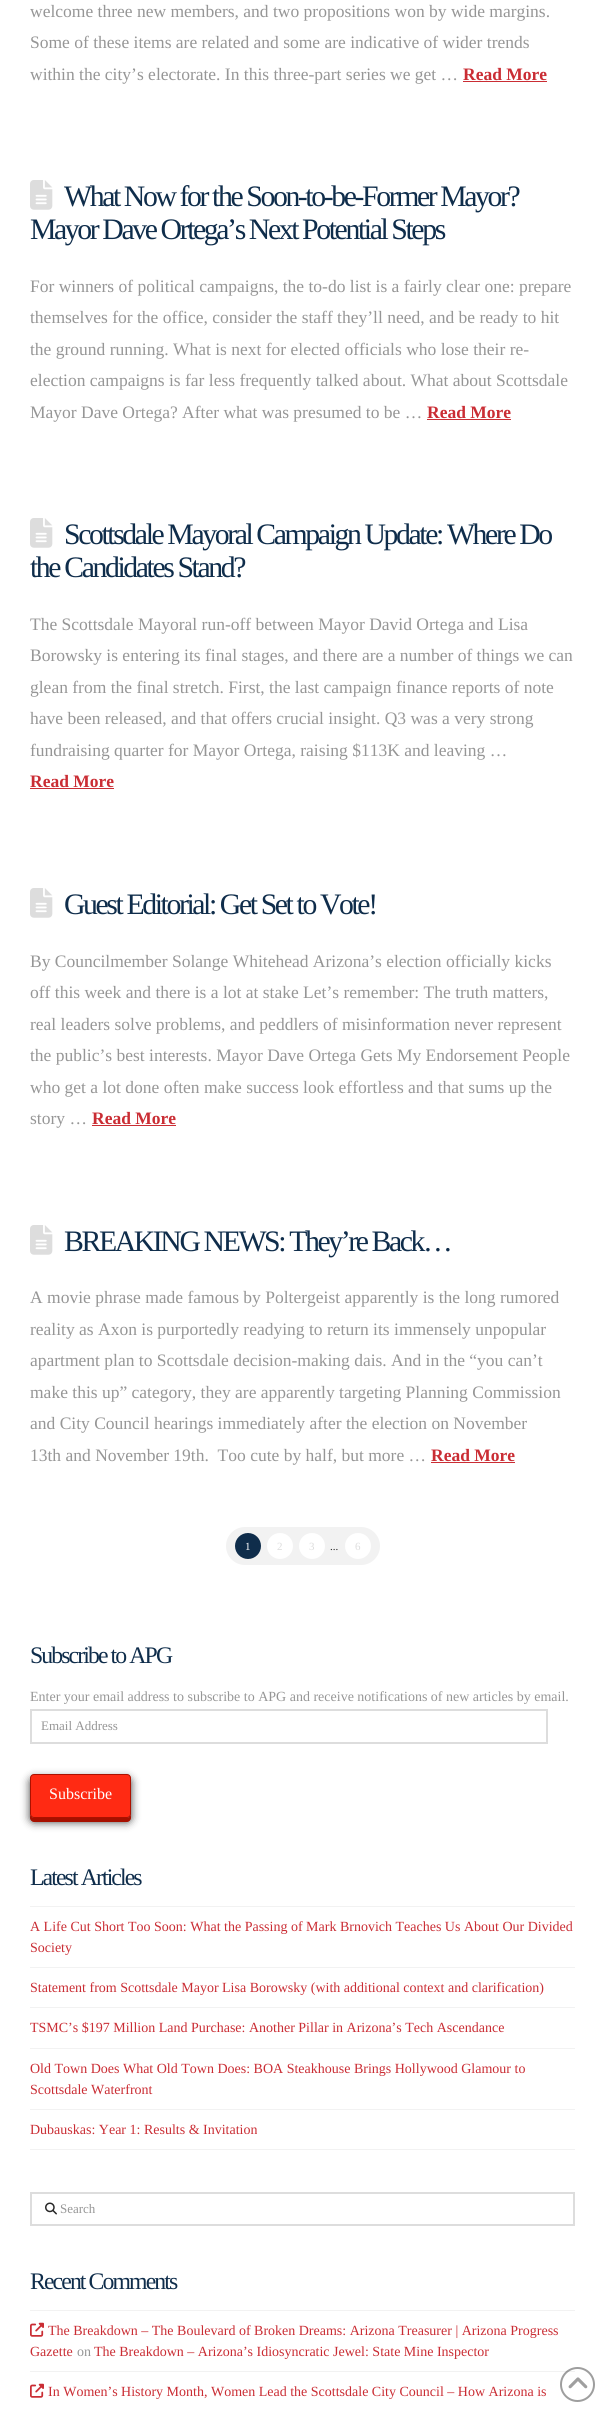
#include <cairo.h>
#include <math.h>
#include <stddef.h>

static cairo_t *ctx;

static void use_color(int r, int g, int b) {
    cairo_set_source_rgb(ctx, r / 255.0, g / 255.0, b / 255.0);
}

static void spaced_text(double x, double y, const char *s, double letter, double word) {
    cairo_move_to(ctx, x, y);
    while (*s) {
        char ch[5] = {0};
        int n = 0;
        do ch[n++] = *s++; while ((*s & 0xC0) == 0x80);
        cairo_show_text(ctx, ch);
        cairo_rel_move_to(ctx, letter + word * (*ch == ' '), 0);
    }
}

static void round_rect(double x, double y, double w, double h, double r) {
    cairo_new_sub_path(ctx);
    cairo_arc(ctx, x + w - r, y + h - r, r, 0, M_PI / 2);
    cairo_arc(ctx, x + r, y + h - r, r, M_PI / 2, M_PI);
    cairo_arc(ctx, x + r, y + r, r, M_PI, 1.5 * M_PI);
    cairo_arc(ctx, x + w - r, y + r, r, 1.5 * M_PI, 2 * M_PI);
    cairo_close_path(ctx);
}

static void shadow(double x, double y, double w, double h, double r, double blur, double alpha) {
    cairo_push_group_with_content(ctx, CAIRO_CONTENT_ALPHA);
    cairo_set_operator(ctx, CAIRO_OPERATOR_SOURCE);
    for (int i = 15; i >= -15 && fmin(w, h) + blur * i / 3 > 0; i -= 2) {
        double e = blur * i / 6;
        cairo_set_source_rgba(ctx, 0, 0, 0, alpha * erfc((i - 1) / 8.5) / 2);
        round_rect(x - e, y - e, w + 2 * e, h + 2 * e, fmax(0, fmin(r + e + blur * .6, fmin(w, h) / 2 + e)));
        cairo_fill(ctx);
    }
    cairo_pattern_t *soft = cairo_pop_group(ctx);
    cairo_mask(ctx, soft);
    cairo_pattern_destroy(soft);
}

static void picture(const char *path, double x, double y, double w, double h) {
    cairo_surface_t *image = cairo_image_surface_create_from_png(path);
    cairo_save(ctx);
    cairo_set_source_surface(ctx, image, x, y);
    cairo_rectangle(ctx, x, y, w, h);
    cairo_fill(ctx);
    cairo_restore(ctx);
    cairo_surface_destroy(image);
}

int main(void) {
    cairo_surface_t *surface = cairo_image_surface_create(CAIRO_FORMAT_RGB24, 605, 2412);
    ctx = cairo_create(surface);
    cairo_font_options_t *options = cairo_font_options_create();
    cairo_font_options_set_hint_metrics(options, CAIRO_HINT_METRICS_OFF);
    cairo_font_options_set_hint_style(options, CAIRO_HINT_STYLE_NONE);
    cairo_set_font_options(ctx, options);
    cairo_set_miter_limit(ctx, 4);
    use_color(255, 255, 255);
    cairo_paint(ctx);
    cairo_select_font_face(ctx, "Liberation Serif", CAIRO_FONT_SLANT_NORMAL, CAIRO_FONT_WEIGHT_NORMAL);
    cairo_set_font_size(ctx, 17.5);
    use_color(150, 150, 150);
    cairo_move_to(ctx, 30, 17);
    cairo_show_text(ctx, "welcome three new members, and two propositions won by wide margins.");
    cairo_move_to(ctx, 30, 48);
    cairo_show_text(ctx, "Some of these items are related and some are indicative of wider trends");
    cairo_move_to(ctx, 30, 80);
    cairo_show_text(ctx, "within the city’s electorate. In this three-part series we get …");
    cairo_select_font_face(ctx, "Liberation Serif", CAIRO_FONT_SLANT_NORMAL, CAIRO_FONT_WEIGHT_BOLD);
    use_color(202, 45, 52);
    cairo_move_to(ctx, 463, 80);
    cairo_show_text(ctx, "Read More");
    cairo_rectangle(ctx, 463, 81, 84, 1);
    cairo_fill(ctx);
    picture("img1.png", 30, 180, 23, 30);
    cairo_select_font_face(ctx, "Liberation Serif", CAIRO_FONT_SLANT_NORMAL, CAIRO_FONT_WEIGHT_NORMAL);
    cairo_set_font_size(ctx, 29.75);
    use_color(15, 45, 75);
    spaced_text(64, 206, "What Now for the Soon-to-be-Former Mayor?", -2.4, 0);
    spaced_text(30, 239, "Mayor Dave Ortega’s Next Potential Steps", -2.4, 0);
    cairo_set_font_size(ctx, 17.5);
    use_color(150, 150, 150);
    cairo_move_to(ctx, 30, 292);
    cairo_show_text(ctx, "For winners of political campaigns, the to-do list is a fairly clear one: prepare");
    cairo_move_to(ctx, 30, 323);
    cairo_show_text(ctx, "themselves for the office, consider the staff they’ll need, and be ready to hit");
    cairo_move_to(ctx, 30, 355);
    cairo_show_text(ctx, "the ground running. What is next for elected officials who lose their re-");
    cairo_move_to(ctx, 30, 386);
    cairo_show_text(ctx, "election campaigns is far less frequently talked about. What about Scottsdale");
    cairo_move_to(ctx, 30, 418);
    cairo_show_text(ctx, "Mayor Dave Ortega? After what was presumed to be …");
    cairo_select_font_face(ctx, "Liberation Serif", CAIRO_FONT_SLANT_NORMAL, CAIRO_FONT_WEIGHT_BOLD);
    use_color(202, 45, 52);
    cairo_move_to(ctx, 427, 418);
    cairo_show_text(ctx, "Read More");
    cairo_rectangle(ctx, 427, 419, 84, 1);
    cairo_fill(ctx);
    picture("img1.png", 30, 518, 23, 30);
    cairo_select_font_face(ctx, "Liberation Serif", CAIRO_FONT_SLANT_NORMAL, CAIRO_FONT_WEIGHT_NORMAL);
    cairo_set_font_size(ctx, 29.75);
    use_color(15, 45, 75);
    spaced_text(64, 544, "Scottsdale Mayoral Campaign Update: Where Do", -2.4, 0);
    spaced_text(30, 577, "the Candidates Stand?", -2.4, 0);
    cairo_set_font_size(ctx, 17.5);
    use_color(150, 150, 150);
    cairo_move_to(ctx, 30, 630);
    cairo_show_text(ctx, "The Scottsdale Mayoral run-off between Mayor David Ortega and Lisa");
    cairo_move_to(ctx, 30, 661);
    cairo_show_text(ctx, "Borowsky is entering its final stages, and there are a number of things we can");
    cairo_move_to(ctx, 30, 693);
    cairo_show_text(ctx, "glean from the final stretch. First, the last campaign finance reports of note");
    cairo_move_to(ctx, 30, 724);
    cairo_show_text(ctx, "have been released, and that offers crucial insight. Q3 was a very strong");
    cairo_move_to(ctx, 30, 756);
    cairo_show_text(ctx, "fundraising quarter for Mayor Ortega, raising $113K and leaving …");
    cairo_select_font_face(ctx, "Liberation Serif", CAIRO_FONT_SLANT_NORMAL, CAIRO_FONT_WEIGHT_BOLD);
    use_color(202, 45, 52);
    cairo_move_to(ctx, 30, 787);
    cairo_show_text(ctx, "Read More");
    cairo_rectangle(ctx, 30, 788, 84, 1);
    cairo_fill(ctx);
    picture("img1.png", 30, 888, 23, 30);
    cairo_select_font_face(ctx, "Liberation Serif", CAIRO_FONT_SLANT_NORMAL, CAIRO_FONT_WEIGHT_NORMAL);
    cairo_set_font_size(ctx, 29.75);
    use_color(15, 45, 75);
    spaced_text(64, 914, "Guest Editorial: Get Set to Vote!", -2.4, 0);
    cairo_set_font_size(ctx, 17.5);
    use_color(150, 150, 150);
    cairo_move_to(ctx, 30, 967);
    cairo_show_text(ctx, "By Councilmember Solange Whitehead Arizona’s election officially kicks");
    cairo_move_to(ctx, 30, 998);
    cairo_show_text(ctx, "off this week and there is a lot at stake Let’s remember: The truth matters,");
    cairo_move_to(ctx, 30, 1030);
    cairo_show_text(ctx, "real leaders solve problems, and peddlers of misinformation never represent");
    cairo_move_to(ctx, 30, 1061);
    cairo_show_text(ctx, "the public’s best interests. Mayor Dave Ortega Gets My Endorsement People");
    cairo_move_to(ctx, 30, 1093);
    cairo_show_text(ctx, "who get a lot done often make success look effortless and that sums up the");
    cairo_move_to(ctx, 30, 1124);
    cairo_show_text(ctx, "story …");
    cairo_select_font_face(ctx, "Liberation Serif", CAIRO_FONT_SLANT_NORMAL, CAIRO_FONT_WEIGHT_BOLD);
    use_color(202, 45, 52);
    cairo_move_to(ctx, 92, 1124);
    cairo_show_text(ctx, "Read More");
    cairo_rectangle(ctx, 92, 1125, 84, 1);
    cairo_fill(ctx);
    picture("img1.png", 30, 1225, 23, 30);
    cairo_select_font_face(ctx, "Liberation Serif", CAIRO_FONT_SLANT_NORMAL, CAIRO_FONT_WEIGHT_NORMAL);
    cairo_set_font_size(ctx, 29.75);
    use_color(15, 45, 75);
    spaced_text(64, 1251, "BREAKING NEWS: They’re Back…", -2.4, 0);
    cairo_set_font_size(ctx, 17.5);
    use_color(150, 150, 150);
    cairo_move_to(ctx, 30, 1303);
    cairo_show_text(ctx, "A movie phrase made famous by Poltergeist apparently is the long rumored");
    cairo_move_to(ctx, 30, 1335);
    cairo_show_text(ctx, "reality as Axon is purportedly readying to return its immensely unpopular");
    cairo_move_to(ctx, 30, 1366);
    cairo_show_text(ctx, "apartment plan to Scottsdale decision-making dais. And in the “you can’t");
    cairo_move_to(ctx, 30, 1398);
    cairo_show_text(ctx, "make this up” category, they are apparently targeting Planning Commission");
    cairo_move_to(ctx, 30, 1429);
    cairo_show_text(ctx, "and City Council hearings immediately after the election on November");
    cairo_move_to(ctx, 30, 1461);
    cairo_show_text(ctx, "13th and November 19th.  Too cute by half, but more …");
    cairo_select_font_face(ctx, "Liberation Serif", CAIRO_FONT_SLANT_NORMAL, CAIRO_FONT_WEIGHT_BOLD);
    use_color(202, 45, 52);
    cairo_move_to(ctx, 431, 1461);
    cairo_show_text(ctx, "Read More");
    cairo_rectangle(ctx, 431, 1462, 84, 1);
    cairo_fill(ctx);
    use_color(242, 242, 242);
    round_rect(226, 1527, 154, 38, 19);
    cairo_fill(ctx);
    use_color(15, 45, 75);
    cairo_arc(ctx, 248, 1546, 13, 0, 2 * M_PI);
    cairo_fill(ctx);
    cairo_select_font_face(ctx, "Liberation Serif", CAIRO_FONT_SLANT_NORMAL, CAIRO_FONT_WEIGHT_NORMAL);
    cairo_set_font_size(ctx, 11);
    use_color(255, 255, 255);
    cairo_move_to(ctx, 245, 1550);
    cairo_show_text(ctx, "1");
    cairo_new_path(ctx);
    cairo_arc(ctx, 280, 1546, 13, 0, 2 * M_PI);
    cairo_fill(ctx);
    use_color(221, 221, 221);
    cairo_move_to(ctx, 277, 1550);
    cairo_show_text(ctx, "2");
    use_color(255, 255, 255);
    cairo_new_path(ctx);
    cairo_arc(ctx, 312, 1546, 13, 0, 2 * M_PI);
    cairo_fill(ctx);
    use_color(221, 221, 221);
    cairo_move_to(ctx, 309, 1550);
    cairo_show_text(ctx, "3");
    use_color(39, 39, 39);
    cairo_move_to(ctx, 330, 1550);
    cairo_show_text(ctx, "...");
    use_color(255, 255, 255);
    cairo_new_path(ctx);
    cairo_arc(ctx, 358, 1546, 13, 0, 2 * M_PI);
    cairo_fill(ctx);
    use_color(221, 221, 221);
    cairo_move_to(ctx, 355, 1550);
    cairo_show_text(ctx, "6");
    cairo_set_font_size(ctx, 23.75);
    use_color(15, 45, 75);
    spaced_text(30, 1663, "Subscribe to APG", -1.9, 0);
    cairo_set_font_size(ctx, 14);
    use_color(150, 150, 150);
    cairo_move_to(ctx, 30, 1701);
    cairo_show_text(ctx, "Enter your email address to subscribe to APG and receive notifications of new articles by email.");
    cairo_rectangle(ctx, 31, 1710, 516, 33);
    use_color(221, 221, 221);
    cairo_stroke(ctx);
    cairo_set_font_size(ctx, 13);
    use_color(150, 150, 150);
    cairo_move_to(ctx, 41, 1730);
    cairo_show_text(ctx, "Email Address");
    use_color(0, 0, 0);
    shadow(30, 1778, 101, 44, 4, 4.5, 0.75);
    use_color(167, 16, 0);
    cairo_new_path(ctx);
    cairo_move_to(ctx, 30, 1814);
    cairo_line_to(ctx, 30, 1818);
    cairo_curve_to(ctx, 30, 1820, 32, 1822, 34, 1822);
    cairo_line_to(ctx, 127, 1822);
    cairo_curve_to(ctx, 129, 1822, 131, 1820, 131, 1818);
    cairo_line_to(ctx, 131, 1814);
    cairo_curve_to(ctx, 131, 1816, 129, 1818, 127, 1818);
    cairo_line_to(ctx, 34, 1818);
    cairo_curve_to(ctx, 32, 1818, 30, 1816, 30, 1814);
    cairo_close_path(ctx);
    cairo_fill(ctx);
    use_color(255, 42, 19);
    round_rect(30.5, 1774.5, 100, 43, 3.5);
    cairo_fill_preserve(ctx);
    use_color(172, 17, 0);
    cairo_set_line_width(ctx, 1);
    cairo_stroke(ctx);
    cairo_set_font_size(ctx, 16);
    use_color(255, 255, 255);
    cairo_move_to(ctx, 49, 1799);
    cairo_show_text(ctx, "Subscribe");
    cairo_set_font_size(ctx, 23.75);
    use_color(15, 45, 75);
    spaced_text(30, 1885, "Latest Articles", -1.9, 0);
    use_color(242, 242, 242);
    cairo_rectangle(ctx, 30, 1906, 545, 1);
    cairo_fill(ctx);
    cairo_rectangle(ctx, 30, 1967, 545, 1);
    cairo_fill(ctx);
    cairo_set_font_size(ctx, 14);
    use_color(202, 45, 52);
    cairo_move_to(ctx, 30, 1931);
    cairo_show_text(ctx, "A Life Cut Short Too Soon: What the Passing of Mark Brnovich Teaches Us About Our Divided");
    cairo_move_to(ctx, 30, 1952);
    cairo_show_text(ctx, "Society");
    use_color(242, 242, 242);
    cairo_rectangle(ctx, 30, 2007, 545, 1);
    cairo_fill(ctx);
    use_color(202, 45, 52);
    cairo_move_to(ctx, 30, 1992);
    cairo_show_text(ctx, "Statement from Scottsdale Mayor Lisa Borowsky (with additional context and clarification)");
    use_color(242, 242, 242);
    cairo_rectangle(ctx, 30, 2048, 545, 1);
    cairo_fill(ctx);
    use_color(202, 45, 52);
    cairo_move_to(ctx, 30, 2032);
    cairo_show_text(ctx, "TSMC’s $197 Million Land Purchase: Another Pillar in Arizona’s Tech Ascendance");
    use_color(242, 242, 242);
    cairo_rectangle(ctx, 30, 2109, 545, 1);
    cairo_fill(ctx);
    use_color(202, 45, 52);
    cairo_move_to(ctx, 30, 2073);
    cairo_show_text(ctx, "Old Town Does What Old Town Does: BOA Steakhouse Brings Hollywood Glamour to");
    cairo_move_to(ctx, 30, 2094);
    cairo_show_text(ctx, "Scottsdale Waterfront");
    use_color(242, 242, 242);
    cairo_rectangle(ctx, 30, 2149, 545, 1);
    cairo_fill(ctx);
    use_color(202, 45, 52);
    cairo_move_to(ctx, 30, 2134);
    cairo_show_text(ctx, "Dubauskas: Year 1: Results & Invitation");
    cairo_rectangle(ctx, 31, 2193, 543, 32);
    use_color(221, 221, 221);
    cairo_set_line_width(ctx, 2);
    cairo_stroke(ctx);
    picture("img2.png", 45, 2202, 12, 13);
    cairo_set_font_size(ctx, 13);
    use_color(150, 150, 150);
    cairo_move_to(ctx, 60, 2213);
    cairo_show_text(ctx, "Search");
    cairo_set_font_size(ctx, 23.75);
    use_color(15, 45, 75);
    spaced_text(30, 2289, "Recent Comments", -1.9, 0);
    use_color(242, 242, 242);
    cairo_rectangle(ctx, 30, 2310, 545, 1);
    cairo_fill(ctx);
    cairo_rectangle(ctx, 30, 2371, 545, 1);
    cairo_fill(ctx);
    picture("img3.png", 30, 2322, 14, 15);
    cairo_set_font_size(ctx, 14);
    use_color(202, 45, 52);
    cairo_move_to(ctx, 48, 2335);
    cairo_show_text(ctx, "The Breakdown – The Boulevard of Broken Dreams: Arizona Treasurer | Arizona Progress");
    cairo_move_to(ctx, 30, 2356);
    cairo_show_text(ctx, "Gazette");
    use_color(150, 150, 150);
    cairo_move_to(ctx, 77, 2356);
    cairo_show_text(ctx, "on");
    use_color(202, 45, 52);
    cairo_move_to(ctx, 94, 2356);
    cairo_show_text(ctx, "The Breakdown – Arizona’s Idiosyncratic Jewel: State Mine Inspector");
    picture("img3.png", 30, 2383, 14, 15);
    cairo_move_to(ctx, 48, 2396);
    cairo_show_text(ctx, "In Women’s History Month, Women Lead the Scottsdale City Council – How Arizona is");
    cairo_new_path(ctx);
    cairo_arc(ctx, 577.5, 2384.5, 16.5, 0, 2 * M_PI);
    cairo_set_source_rgba(ctx, 0, 0, 0, 0.38);
    cairo_stroke(ctx);
    picture("img4.png", 568, 2377, 20, 12);
    cairo_surface_write_to_png(surface, "result.png");
    cairo_font_options_destroy(options);
    cairo_destroy(ctx);
    cairo_surface_destroy(surface);
    return 0;
}
